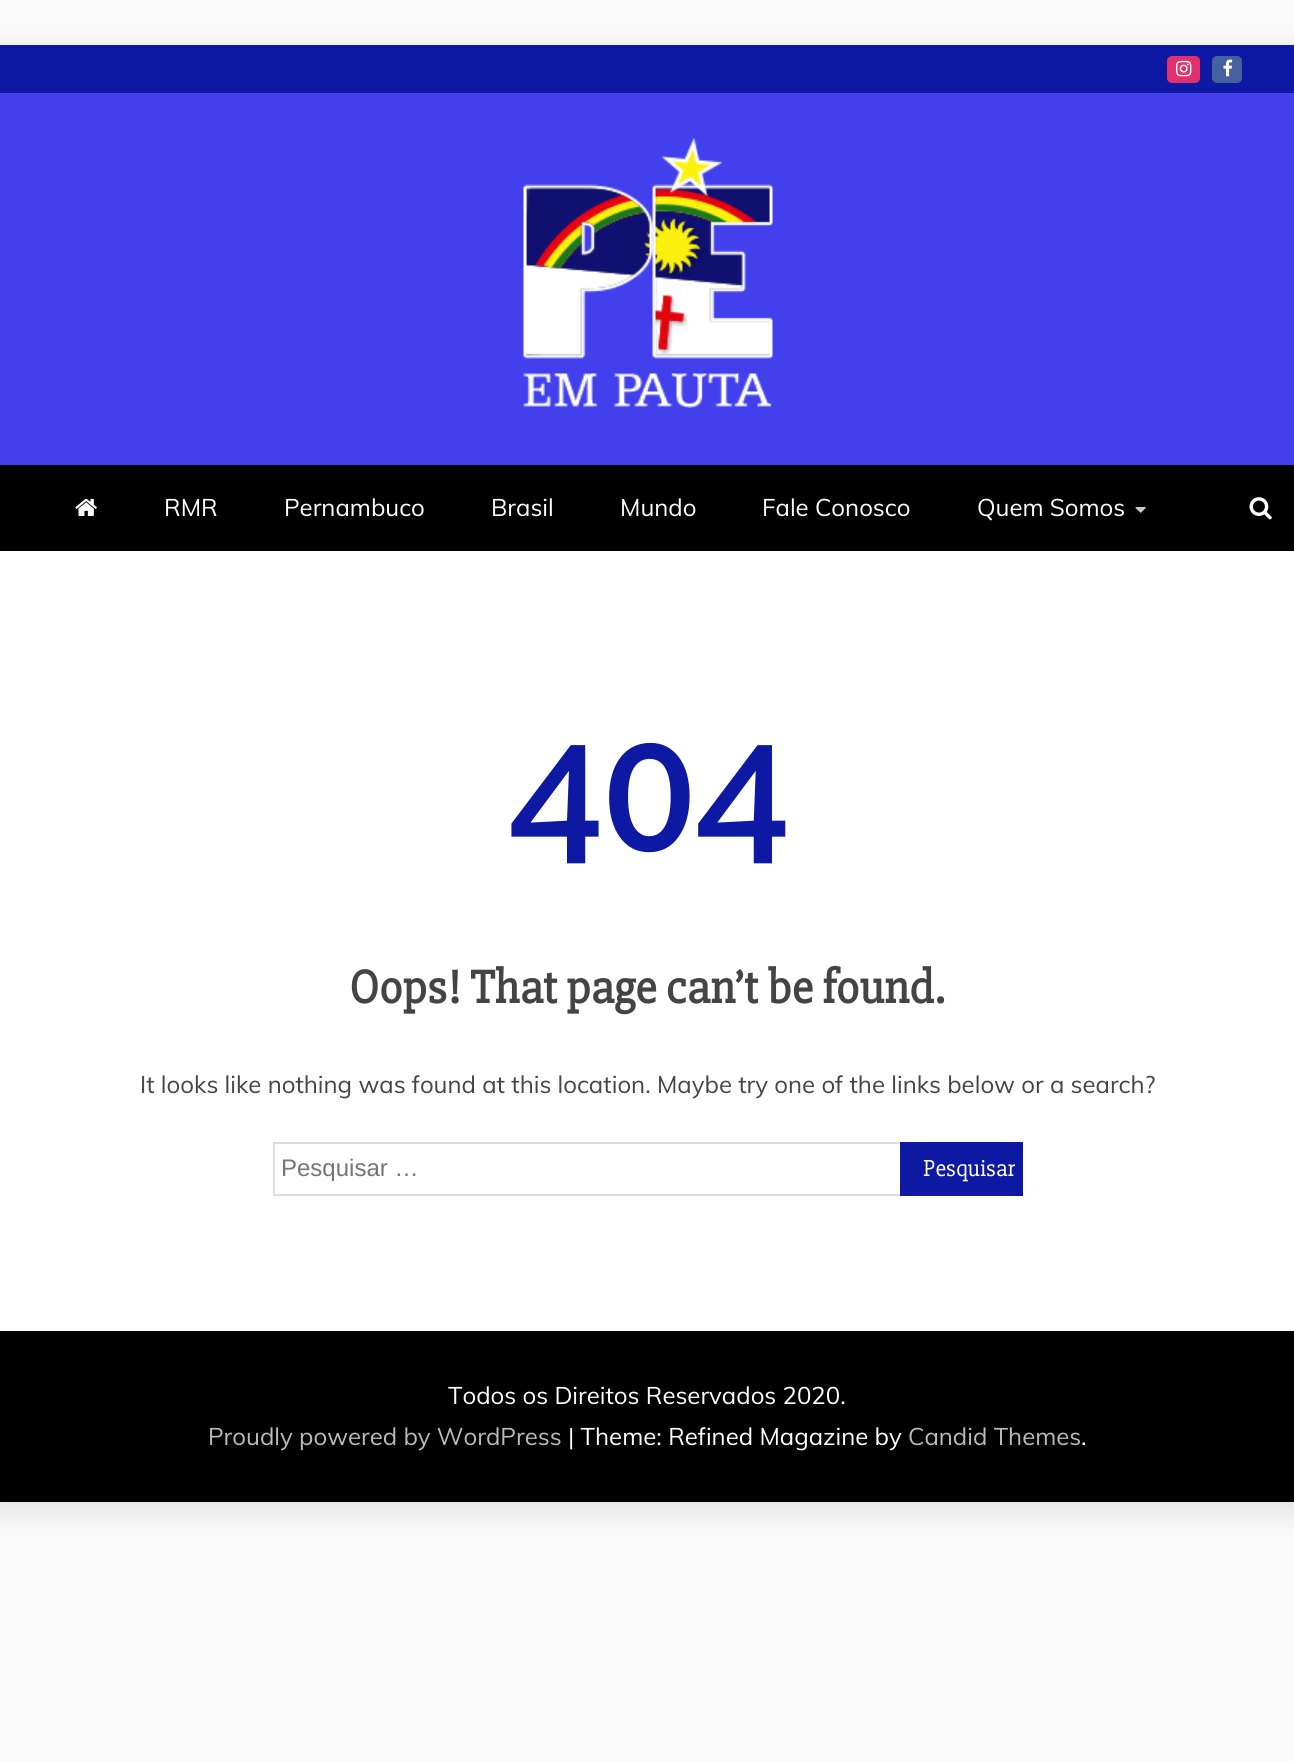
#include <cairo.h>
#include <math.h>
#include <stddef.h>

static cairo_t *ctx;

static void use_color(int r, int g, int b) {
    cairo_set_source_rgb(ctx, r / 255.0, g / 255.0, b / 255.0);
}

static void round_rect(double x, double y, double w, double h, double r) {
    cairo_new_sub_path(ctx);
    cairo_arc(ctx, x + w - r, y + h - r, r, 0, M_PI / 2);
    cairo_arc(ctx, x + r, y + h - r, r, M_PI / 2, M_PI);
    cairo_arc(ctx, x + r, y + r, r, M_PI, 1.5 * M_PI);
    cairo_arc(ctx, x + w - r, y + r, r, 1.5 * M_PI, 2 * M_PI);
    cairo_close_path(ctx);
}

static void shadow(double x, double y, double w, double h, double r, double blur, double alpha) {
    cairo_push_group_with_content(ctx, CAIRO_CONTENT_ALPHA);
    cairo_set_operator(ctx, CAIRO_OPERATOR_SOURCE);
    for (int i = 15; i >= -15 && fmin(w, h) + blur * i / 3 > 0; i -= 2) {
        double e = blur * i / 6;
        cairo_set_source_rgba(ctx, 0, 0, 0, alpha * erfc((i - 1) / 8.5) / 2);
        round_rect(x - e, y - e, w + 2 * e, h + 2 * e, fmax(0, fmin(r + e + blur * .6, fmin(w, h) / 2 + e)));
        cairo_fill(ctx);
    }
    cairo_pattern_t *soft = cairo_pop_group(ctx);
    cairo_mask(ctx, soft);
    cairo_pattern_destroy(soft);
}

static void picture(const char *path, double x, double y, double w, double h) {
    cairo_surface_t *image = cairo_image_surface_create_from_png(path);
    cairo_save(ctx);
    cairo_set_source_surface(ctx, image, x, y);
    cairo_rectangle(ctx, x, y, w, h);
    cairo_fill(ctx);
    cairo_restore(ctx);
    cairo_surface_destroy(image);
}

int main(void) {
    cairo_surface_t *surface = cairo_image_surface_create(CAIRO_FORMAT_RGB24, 1294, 1761);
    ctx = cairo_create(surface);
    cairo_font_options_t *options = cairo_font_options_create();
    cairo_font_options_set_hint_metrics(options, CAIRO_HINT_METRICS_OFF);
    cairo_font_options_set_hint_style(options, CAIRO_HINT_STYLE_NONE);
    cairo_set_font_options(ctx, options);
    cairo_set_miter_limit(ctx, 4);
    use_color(250, 250, 250);
    cairo_paint(ctx);
    use_color(0, 0, 0);
    shadow(-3, 50, 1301, 1462, 0, 14, 0.1);
    use_color(255, 255, 255);
    cairo_rectangle(ctx, 0, 551, 1294, 780);
    cairo_fill(ctx);
    use_color(13, 25, 163);
    cairo_rectangle(ctx, 0, 45, 1294, 48);
    cairo_fill(ctx);
    use_color(225, 48, 108);
    round_rect(1167, 56, 33, 27, 5);
    cairo_fill(ctx);
    picture("img1.png", 1176, 60, 16, 17);
    use_color(69, 97, 157);
    round_rect(1212, 56, 30, 27, 5);
    cairo_fill(ctx);
    picture("img2.png", 1223, 59, 10, 18);
    use_color(66, 64, 237);
    cairo_rectangle(ctx, 0, 93, 1294, 372);
    cairo_fill(ctx);
    picture("img3.png", 523, 138, 250, 270);
    use_color(0, 0, 0);
    cairo_rectangle(ctx, 0, 465, 1294, 86);
    cairo_fill(ctx);
    picture("img4.png", 75, 498, 22, 18);
    cairo_select_font_face(ctx, "Muli", CAIRO_FONT_SLANT_NORMAL, CAIRO_FONT_WEIGHT_NORMAL);
    cairo_set_font_size(ctx, 24);
    use_color(255, 255, 255);
    cairo_move_to(ctx, 164, 516);
    cairo_show_text(ctx, "RMR");
    cairo_move_to(ctx, 284, 516);
    cairo_show_text(ctx, "Pernambuco");
    cairo_move_to(ctx, 491, 516);
    cairo_show_text(ctx, "Brasil");
    cairo_move_to(ctx, 620, 516);
    cairo_show_text(ctx, "Mundo");
    cairo_move_to(ctx, 762, 516);
    cairo_show_text(ctx, "Fale Conosco");
    cairo_move_to(ctx, 977, 516);
    cairo_show_text(ctx, "Quem Somos");
    picture("img5.png", 1135, 507, 11, 6);
    picture("img6.png", 1249, 497, 23, 23);
    cairo_select_font_face(ctx, "Slabo 27px", CAIRO_FONT_SLANT_NORMAL, CAIRO_FONT_WEIGHT_BOLD);
    cairo_set_font_size(ctx, 180);
    use_color(13, 25, 163);
    cairo_move_to(ctx, 507, 850);
    cairo_show_text(ctx, "404");
    cairo_set_font_size(ctx, 48);
    use_color(68, 68, 68);
    cairo_move_to(ctx, 349, 1003);
    cairo_show_text(ctx, "Oops! That page can’t be found.");
    cairo_select_font_face(ctx, "Muli", CAIRO_FONT_SLANT_NORMAL, CAIRO_FONT_WEIGHT_NORMAL);
    cairo_set_font_size(ctx, 24);
    cairo_move_to(ctx, 140, 1093);
    cairo_show_text(ctx, "It looks like nothing was found at this location. Maybe try one of the links below or a search?");
    cairo_rectangle(ctx, 274, 1143, 748, 52);
    use_color(221, 221, 221);
    cairo_stroke(ctx);
    cairo_select_font_face(ctx, "Liberation Sans", CAIRO_FONT_SLANT_NORMAL, CAIRO_FONT_WEIGHT_NORMAL);
    use_color(117, 117, 117);
    cairo_move_to(ctx, 281, 1176);
    cairo_show_text(ctx, "Pesquisar …");
    use_color(13, 25, 163);
    cairo_rectangle(ctx, 900, 1142, 123, 54);
    cairo_fill(ctx);
    cairo_select_font_face(ctx, "Slabo 27px", CAIRO_FONT_SLANT_NORMAL, CAIRO_FONT_WEIGHT_NORMAL);
    use_color(255, 255, 255);
    cairo_move_to(ctx, 923, 1176);
    cairo_show_text(ctx, "Pesquisar");
    use_color(0, 0, 0);
    cairo_rectangle(ctx, 0, 1331, 1294, 171);
    cairo_fill(ctx);
    cairo_select_font_face(ctx, "Muli", CAIRO_FONT_SLANT_NORMAL, CAIRO_FONT_WEIGHT_NORMAL);
    use_color(255, 255, 255);
    cairo_move_to(ctx, 448, 1404);
    cairo_show_text(ctx, "Todos os Direitos Reservados 2020.");
    use_color(187, 187, 187);
    cairo_move_to(ctx, 208, 1445);
    cairo_show_text(ctx, "Proudly powered by WordPress");
    use_color(255, 255, 255);
    cairo_move_to(ctx, 568, 1445);
    cairo_show_text(ctx, "| Theme: Refined Magazine by");
    use_color(187, 187, 187);
    cairo_move_to(ctx, 908, 1445);
    cairo_show_text(ctx, "Candid Themes");
    use_color(255, 255, 255);
    cairo_move_to(ctx, 1081, 1445);
    cairo_show_text(ctx, ".");
    cairo_surface_write_to_png(surface, "result.png");
    cairo_font_options_destroy(options);
    cairo_destroy(ctx);
    cairo_surface_destroy(surface);
    return 0;
}
